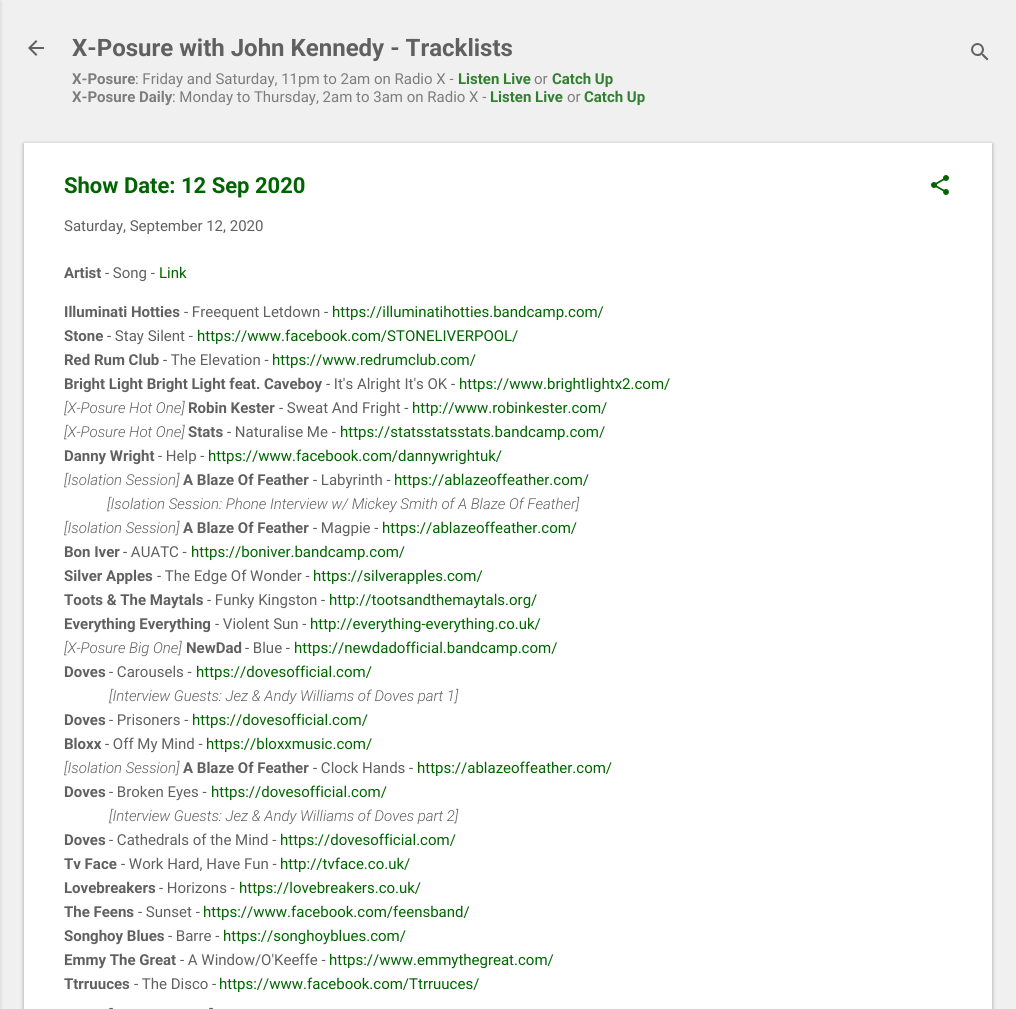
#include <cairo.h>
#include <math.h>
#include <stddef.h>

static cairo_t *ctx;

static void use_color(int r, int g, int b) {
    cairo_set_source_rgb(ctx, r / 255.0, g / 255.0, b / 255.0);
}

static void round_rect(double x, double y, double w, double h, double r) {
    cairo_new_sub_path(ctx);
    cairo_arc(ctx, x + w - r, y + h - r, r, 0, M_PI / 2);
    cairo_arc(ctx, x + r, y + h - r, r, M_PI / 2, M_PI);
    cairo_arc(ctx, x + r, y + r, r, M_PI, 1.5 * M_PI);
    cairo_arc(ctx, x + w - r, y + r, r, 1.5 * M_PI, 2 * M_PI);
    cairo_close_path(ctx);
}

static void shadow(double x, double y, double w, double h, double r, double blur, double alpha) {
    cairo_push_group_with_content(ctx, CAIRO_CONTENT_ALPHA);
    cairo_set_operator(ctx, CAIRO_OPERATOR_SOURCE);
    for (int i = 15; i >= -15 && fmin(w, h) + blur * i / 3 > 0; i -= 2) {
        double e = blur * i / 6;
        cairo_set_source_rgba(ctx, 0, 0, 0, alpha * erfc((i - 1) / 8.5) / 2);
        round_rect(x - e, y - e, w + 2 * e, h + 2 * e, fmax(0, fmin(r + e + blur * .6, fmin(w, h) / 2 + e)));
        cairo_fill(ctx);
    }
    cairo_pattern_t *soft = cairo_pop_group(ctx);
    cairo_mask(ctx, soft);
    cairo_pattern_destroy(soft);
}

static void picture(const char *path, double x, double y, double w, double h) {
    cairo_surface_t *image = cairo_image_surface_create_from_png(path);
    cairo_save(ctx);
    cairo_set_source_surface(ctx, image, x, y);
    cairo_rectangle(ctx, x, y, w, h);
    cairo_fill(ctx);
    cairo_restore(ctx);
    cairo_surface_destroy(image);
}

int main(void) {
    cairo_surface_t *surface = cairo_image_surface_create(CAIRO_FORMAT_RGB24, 1016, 1009);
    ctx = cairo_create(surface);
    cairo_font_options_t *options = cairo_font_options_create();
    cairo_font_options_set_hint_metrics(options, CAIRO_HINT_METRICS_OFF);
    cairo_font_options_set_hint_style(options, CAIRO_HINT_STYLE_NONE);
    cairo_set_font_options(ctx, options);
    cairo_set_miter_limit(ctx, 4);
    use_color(240, 240, 240);
    cairo_paint(ctx);
    use_color(0, 0, 0);
    shadow(-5, 1, 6, 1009, 0, 1.5, 0.1);
    picture("img1.png", 28, 40, 16, 16);
    cairo_select_font_face(ctx, "Roboto", CAIRO_FONT_SLANT_NORMAL, CAIRO_FONT_WEIGHT_BOLD);
    cairo_set_font_size(ctx, 24);
    use_color(96, 96, 96);
    cairo_move_to(ctx, 72, 56);
    cairo_show_text(ctx, "X-Posure with John Kennedy - Tracklists");
    cairo_set_font_size(ctx, 15);
    use_color(125, 125, 125);
    cairo_move_to(ctx, 72, 84);
    cairo_show_text(ctx, "X-Posure");
    cairo_select_font_face(ctx, "Roboto", CAIRO_FONT_SLANT_NORMAL, CAIRO_FONT_WEIGHT_NORMAL);
    cairo_move_to(ctx, 135, 84);
    cairo_show_text(ctx, ": Friday and Saturday, 11pm to 2am on Radio X -");
    cairo_select_font_face(ctx, "Roboto", CAIRO_FONT_SLANT_NORMAL, CAIRO_FONT_WEIGHT_BOLD);
    use_color(48, 128, 48);
    cairo_move_to(ctx, 458, 84);
    cairo_show_text(ctx, "Listen Live");
    cairo_select_font_face(ctx, "Roboto", CAIRO_FONT_SLANT_NORMAL, CAIRO_FONT_WEIGHT_NORMAL);
    use_color(125, 125, 125);
    cairo_move_to(ctx, 534, 84);
    cairo_show_text(ctx, "or");
    cairo_select_font_face(ctx, "Roboto", CAIRO_FONT_SLANT_NORMAL, CAIRO_FONT_WEIGHT_BOLD);
    use_color(48, 128, 48);
    cairo_move_to(ctx, 552, 84);
    cairo_show_text(ctx, "Catch Up");
    use_color(125, 125, 125);
    cairo_move_to(ctx, 72, 102);
    cairo_show_text(ctx, "X-Posure Daily");
    cairo_select_font_face(ctx, "Roboto", CAIRO_FONT_SLANT_NORMAL, CAIRO_FONT_WEIGHT_NORMAL);
    cairo_move_to(ctx, 172, 102);
    cairo_show_text(ctx, ": Monday to Thursday, 2am to 3am on Radio X -");
    cairo_select_font_face(ctx, "Roboto", CAIRO_FONT_SLANT_NORMAL, CAIRO_FONT_WEIGHT_BOLD);
    use_color(48, 128, 48);
    cairo_move_to(ctx, 490, 102);
    cairo_show_text(ctx, "Listen Live");
    cairo_select_font_face(ctx, "Roboto", CAIRO_FONT_SLANT_NORMAL, CAIRO_FONT_WEIGHT_NORMAL);
    use_color(125, 125, 125);
    cairo_move_to(ctx, 567, 102);
    cairo_show_text(ctx, "or");
    cairo_select_font_face(ctx, "Roboto", CAIRO_FONT_SLANT_NORMAL, CAIRO_FONT_WEIGHT_BOLD);
    use_color(48, 128, 48);
    cairo_move_to(ctx, 584, 102);
    cairo_show_text(ctx, "Catch Up");
    picture("img2.png", 971, 43, 18, 18);
    use_color(158, 158, 158);
    shadow(24, 144, 968, 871, 0, 2, 1);
    use_color(255, 255, 255);
    cairo_rectangle(ctx, 24, 143, 968, 866);
    cairo_fill(ctx);
    cairo_set_font_size(ctx, 22);
    use_color(0, 100, 0);
    cairo_move_to(ctx, 64, 193);
    cairo_show_text(ctx, "Show Date: 12 Sep 2020");
    picture("img3.png", 931, 175, 18, 20);
    cairo_select_font_face(ctx, "Roboto", CAIRO_FONT_SLANT_NORMAL, CAIRO_FONT_WEIGHT_NORMAL);
    cairo_set_font_size(ctx, 15);
    use_color(96, 96, 96);
    cairo_move_to(ctx, 64, 231);
    cairo_show_text(ctx, "Saturday, September 12, 2020");
    cairo_select_font_face(ctx, "Roboto", CAIRO_FONT_SLANT_NORMAL, CAIRO_FONT_WEIGHT_BOLD);
    cairo_move_to(ctx, 64, 278);
    cairo_show_text(ctx, "Artist");
    cairo_select_font_face(ctx, "Roboto", CAIRO_FONT_SLANT_NORMAL, CAIRO_FONT_WEIGHT_NORMAL);
    cairo_move_to(ctx, 105, 278);
    cairo_show_text(ctx, "- Song -");
    use_color(0, 100, 0);
    cairo_move_to(ctx, 159, 278);
    cairo_show_text(ctx, "Link");
    cairo_select_font_face(ctx, "Roboto", CAIRO_FONT_SLANT_NORMAL, CAIRO_FONT_WEIGHT_BOLD);
    use_color(96, 96, 96);
    cairo_move_to(ctx, 64, 317);
    cairo_show_text(ctx, "Illuminati Hotties");
    cairo_select_font_face(ctx, "Roboto", CAIRO_FONT_SLANT_NORMAL, CAIRO_FONT_WEIGHT_NORMAL);
    cairo_move_to(ctx, 184, 317);
    cairo_show_text(ctx, "- Freequent Letdown -");
    use_color(0, 100, 0);
    cairo_move_to(ctx, 332, 317);
    cairo_show_text(ctx, "https://illuminatihotties.bandcamp.com/");
    cairo_select_font_face(ctx, "Roboto", CAIRO_FONT_SLANT_NORMAL, CAIRO_FONT_WEIGHT_BOLD);
    use_color(96, 96, 96);
    cairo_move_to(ctx, 64, 341);
    cairo_show_text(ctx, "Stone");
    cairo_select_font_face(ctx, "Roboto", CAIRO_FONT_SLANT_NORMAL, CAIRO_FONT_WEIGHT_NORMAL);
    cairo_move_to(ctx, 107, 341);
    cairo_show_text(ctx, "- Stay Silent -");
    use_color(0, 100, 0);
    cairo_move_to(ctx, 197, 341);
    cairo_show_text(ctx, "https://www.facebook.com/STONELIVERPOOL/");
    cairo_select_font_face(ctx, "Roboto", CAIRO_FONT_SLANT_NORMAL, CAIRO_FONT_WEIGHT_BOLD);
    use_color(96, 96, 96);
    cairo_move_to(ctx, 64, 365);
    cairo_show_text(ctx, "Red Rum Club");
    cairo_select_font_face(ctx, "Roboto", CAIRO_FONT_SLANT_NORMAL, CAIRO_FONT_WEIGHT_NORMAL);
    cairo_move_to(ctx, 163, 365);
    cairo_show_text(ctx, "- The Elevation -");
    use_color(0, 100, 0);
    cairo_move_to(ctx, 272, 365);
    cairo_show_text(ctx, "https://www.redrumclub.com/");
    cairo_select_font_face(ctx, "Roboto", CAIRO_FONT_SLANT_NORMAL, CAIRO_FONT_WEIGHT_BOLD);
    use_color(96, 96, 96);
    cairo_move_to(ctx, 64, 389);
    cairo_show_text(ctx, "Bright Light Bright Light feat. Caveboy");
    cairo_select_font_face(ctx, "Roboto", CAIRO_FONT_SLANT_NORMAL, CAIRO_FONT_WEIGHT_NORMAL);
    cairo_move_to(ctx, 326, 389);
    cairo_show_text(ctx, "- It's Alright It's OK -");
    use_color(0, 100, 0);
    cairo_move_to(ctx, 459, 389);
    cairo_show_text(ctx, "https://www.brightlightx2.com/");
    cairo_select_font_face(ctx, "Roboto Light", CAIRO_FONT_SLANT_ITALIC, CAIRO_FONT_WEIGHT_NORMAL);
    use_color(96, 96, 96);
    cairo_move_to(ctx, 64, 413);
    cairo_show_text(ctx, "[X-Posure Hot One]");
    cairo_select_font_face(ctx, "Roboto", CAIRO_FONT_SLANT_NORMAL, CAIRO_FONT_WEIGHT_BOLD);
    cairo_move_to(ctx, 188, 413);
    cairo_show_text(ctx, "Robin Kester");
    cairo_select_font_face(ctx, "Roboto", CAIRO_FONT_SLANT_NORMAL, CAIRO_FONT_WEIGHT_NORMAL);
    cairo_move_to(ctx, 279, 413);
    cairo_show_text(ctx, "- Sweat And Fright -");
    use_color(0, 100, 0);
    cairo_move_to(ctx, 412, 413);
    cairo_show_text(ctx, "http://www.robinkester.com/");
    cairo_select_font_face(ctx, "Roboto Light", CAIRO_FONT_SLANT_ITALIC, CAIRO_FONT_WEIGHT_NORMAL);
    use_color(96, 96, 96);
    cairo_move_to(ctx, 64, 437);
    cairo_show_text(ctx, "[X-Posure Hot One]");
    cairo_select_font_face(ctx, "Roboto", CAIRO_FONT_SLANT_NORMAL, CAIRO_FONT_WEIGHT_BOLD);
    cairo_move_to(ctx, 188, 437);
    cairo_show_text(ctx, "Stats");
    cairo_select_font_face(ctx, "Roboto", CAIRO_FONT_SLANT_NORMAL, CAIRO_FONT_WEIGHT_NORMAL);
    cairo_move_to(ctx, 227, 437);
    cairo_show_text(ctx, "- Naturalise Me -");
    use_color(0, 100, 0);
    cairo_move_to(ctx, 340, 437);
    cairo_show_text(ctx, "https://statsstatsstats.bandcamp.com/");
    cairo_select_font_face(ctx, "Roboto", CAIRO_FONT_SLANT_NORMAL, CAIRO_FONT_WEIGHT_BOLD);
    use_color(96, 96, 96);
    cairo_move_to(ctx, 64, 461);
    cairo_show_text(ctx, "Danny Wright");
    cairo_select_font_face(ctx, "Roboto", CAIRO_FONT_SLANT_NORMAL, CAIRO_FONT_WEIGHT_NORMAL);
    cairo_move_to(ctx, 158, 461);
    cairo_show_text(ctx, "- Help -");
    use_color(0, 100, 0);
    cairo_move_to(ctx, 208, 461);
    cairo_show_text(ctx, "https://www.facebook.com/dannywrightuk/");
    cairo_select_font_face(ctx, "Roboto Light", CAIRO_FONT_SLANT_ITALIC, CAIRO_FONT_WEIGHT_NORMAL);
    use_color(96, 96, 96);
    cairo_move_to(ctx, 64, 485);
    cairo_show_text(ctx, "[Isolation Session]");
    cairo_select_font_face(ctx, "Roboto", CAIRO_FONT_SLANT_NORMAL, CAIRO_FONT_WEIGHT_BOLD);
    cairo_move_to(ctx, 183, 485);
    cairo_show_text(ctx, "A Blaze Of Feather");
    cairo_select_font_face(ctx, "Roboto", CAIRO_FONT_SLANT_NORMAL, CAIRO_FONT_WEIGHT_NORMAL);
    cairo_move_to(ctx, 313, 485);
    cairo_show_text(ctx, "- Labyrinth -");
    use_color(0, 100, 0);
    cairo_move_to(ctx, 394, 485);
    cairo_show_text(ctx, "https://ablazeoffeather.com/");
    cairo_select_font_face(ctx, "Roboto Light", CAIRO_FONT_SLANT_ITALIC, CAIRO_FONT_WEIGHT_NORMAL);
    use_color(96, 96, 96);
    cairo_move_to(ctx, 107, 509);
    cairo_show_text(ctx, "[Isolation Session: Phone Interview w/ Mickey Smith of A Blaze Of Feather]");
    cairo_move_to(ctx, 64, 533);
    cairo_show_text(ctx, "[Isolation Session]");
    cairo_select_font_face(ctx, "Roboto", CAIRO_FONT_SLANT_NORMAL, CAIRO_FONT_WEIGHT_BOLD);
    cairo_move_to(ctx, 183, 533);
    cairo_show_text(ctx, "A Blaze Of Feather");
    cairo_select_font_face(ctx, "Roboto", CAIRO_FONT_SLANT_NORMAL, CAIRO_FONT_WEIGHT_NORMAL);
    cairo_move_to(ctx, 313, 533);
    cairo_show_text(ctx, "- Magpie -");
    use_color(0, 100, 0);
    cairo_move_to(ctx, 382, 533);
    cairo_show_text(ctx, "https://ablazeoffeather.com/");
    cairo_select_font_face(ctx, "Roboto", CAIRO_FONT_SLANT_NORMAL, CAIRO_FONT_WEIGHT_BOLD);
    use_color(96, 96, 96);
    cairo_move_to(ctx, 64, 557);
    cairo_show_text(ctx, "Bon Iver");
    cairo_select_font_face(ctx, "Roboto", CAIRO_FONT_SLANT_NORMAL, CAIRO_FONT_WEIGHT_NORMAL);
    cairo_move_to(ctx, 123, 557);
    cairo_show_text(ctx, "- AUATC -");
    use_color(0, 100, 0);
    cairo_move_to(ctx, 191, 557);
    cairo_show_text(ctx, "https://boniver.bandcamp.com/");
    cairo_select_font_face(ctx, "Roboto", CAIRO_FONT_SLANT_NORMAL, CAIRO_FONT_WEIGHT_BOLD);
    use_color(96, 96, 96);
    cairo_move_to(ctx, 64, 581);
    cairo_show_text(ctx, "Silver Apples");
    cairo_select_font_face(ctx, "Roboto", CAIRO_FONT_SLANT_NORMAL, CAIRO_FONT_WEIGHT_NORMAL);
    cairo_move_to(ctx, 157, 581);
    cairo_show_text(ctx, "- The Edge Of Wonder -");
    use_color(0, 100, 0);
    cairo_move_to(ctx, 313, 581);
    cairo_show_text(ctx, "https://silverapples.com/");
    cairo_select_font_face(ctx, "Roboto", CAIRO_FONT_SLANT_NORMAL, CAIRO_FONT_WEIGHT_BOLD);
    use_color(96, 96, 96);
    cairo_move_to(ctx, 64, 605);
    cairo_show_text(ctx, "Toots & The Maytals");
    cairo_select_font_face(ctx, "Roboto", CAIRO_FONT_SLANT_NORMAL, CAIRO_FONT_WEIGHT_NORMAL);
    cairo_move_to(ctx, 207, 605);
    cairo_show_text(ctx, "- Funky Kingston -");
    use_color(0, 100, 0);
    cairo_move_to(ctx, 329, 605);
    cairo_show_text(ctx, "http://tootsandthemaytals.org/");
    cairo_select_font_face(ctx, "Roboto", CAIRO_FONT_SLANT_NORMAL, CAIRO_FONT_WEIGHT_BOLD);
    use_color(96, 96, 96);
    cairo_move_to(ctx, 64, 629);
    cairo_show_text(ctx, "Everything Everything");
    cairo_select_font_face(ctx, "Roboto", CAIRO_FONT_SLANT_NORMAL, CAIRO_FONT_WEIGHT_NORMAL);
    cairo_move_to(ctx, 215, 629);
    cairo_show_text(ctx, "- Violent Sun -");
    use_color(0, 100, 0);
    cairo_move_to(ctx, 310, 629);
    cairo_show_text(ctx, "http://everything-everything.co.uk/");
    cairo_select_font_face(ctx, "Roboto Light", CAIRO_FONT_SLANT_ITALIC, CAIRO_FONT_WEIGHT_NORMAL);
    use_color(96, 96, 96);
    cairo_move_to(ctx, 64, 653);
    cairo_show_text(ctx, "[X-Posure Big One]");
    cairo_select_font_face(ctx, "Roboto", CAIRO_FONT_SLANT_NORMAL, CAIRO_FONT_WEIGHT_BOLD);
    cairo_move_to(ctx, 186, 653);
    cairo_show_text(ctx, "NewDad");
    cairo_select_font_face(ctx, "Roboto", CAIRO_FONT_SLANT_NORMAL, CAIRO_FONT_WEIGHT_NORMAL);
    cairo_move_to(ctx, 245, 653);
    cairo_show_text(ctx, "- Blue -");
    use_color(0, 100, 0);
    cairo_move_to(ctx, 294, 653);
    cairo_show_text(ctx, "https://newdadofficial.bandcamp.com/");
    cairo_select_font_face(ctx, "Roboto", CAIRO_FONT_SLANT_NORMAL, CAIRO_FONT_WEIGHT_BOLD);
    use_color(96, 96, 96);
    cairo_move_to(ctx, 64, 677);
    cairo_show_text(ctx, "Doves");
    cairo_select_font_face(ctx, "Roboto", CAIRO_FONT_SLANT_NORMAL, CAIRO_FONT_WEIGHT_NORMAL);
    cairo_move_to(ctx, 109, 677);
    cairo_show_text(ctx, "- Carousels -");
    use_color(0, 100, 0);
    cairo_move_to(ctx, 196, 677);
    cairo_show_text(ctx, "https://dovesofficial.com/");
    cairo_select_font_face(ctx, "Roboto Light", CAIRO_FONT_SLANT_ITALIC, CAIRO_FONT_WEIGHT_NORMAL);
    use_color(96, 96, 96);
    cairo_move_to(ctx, 109, 701);
    cairo_show_text(ctx, "[Interview Guests: Jez & Andy Williams of Doves part 1]");
    cairo_select_font_face(ctx, "Roboto", CAIRO_FONT_SLANT_NORMAL, CAIRO_FONT_WEIGHT_BOLD);
    cairo_move_to(ctx, 64, 725);
    cairo_show_text(ctx, "Doves");
    cairo_select_font_face(ctx, "Roboto", CAIRO_FONT_SLANT_NORMAL, CAIRO_FONT_WEIGHT_NORMAL);
    cairo_move_to(ctx, 109, 725);
    cairo_show_text(ctx, "- Prisoners -");
    use_color(0, 100, 0);
    cairo_move_to(ctx, 192, 725);
    cairo_show_text(ctx, "https://dovesofficial.com/");
    cairo_select_font_face(ctx, "Roboto", CAIRO_FONT_SLANT_NORMAL, CAIRO_FONT_WEIGHT_BOLD);
    use_color(96, 96, 96);
    cairo_move_to(ctx, 64, 749);
    cairo_show_text(ctx, "Bloxx");
    cairo_select_font_face(ctx, "Roboto", CAIRO_FONT_SLANT_NORMAL, CAIRO_FONT_WEIGHT_NORMAL);
    cairo_move_to(ctx, 105, 749);
    cairo_show_text(ctx, "- Off My Mind -");
    use_color(0, 100, 0);
    cairo_move_to(ctx, 206, 749);
    cairo_show_text(ctx, "https://bloxxmusic.com/");
    cairo_select_font_face(ctx, "Roboto Light", CAIRO_FONT_SLANT_ITALIC, CAIRO_FONT_WEIGHT_NORMAL);
    use_color(96, 96, 96);
    cairo_move_to(ctx, 64, 773);
    cairo_show_text(ctx, "[Isolation Session]");
    cairo_select_font_face(ctx, "Roboto", CAIRO_FONT_SLANT_NORMAL, CAIRO_FONT_WEIGHT_BOLD);
    cairo_move_to(ctx, 183, 773);
    cairo_show_text(ctx, "A Blaze Of Feather");
    cairo_select_font_face(ctx, "Roboto", CAIRO_FONT_SLANT_NORMAL, CAIRO_FONT_WEIGHT_NORMAL);
    cairo_move_to(ctx, 313, 773);
    cairo_show_text(ctx, "- Clock Hands -");
    use_color(0, 100, 0);
    cairo_move_to(ctx, 417, 773);
    cairo_show_text(ctx, "https://ablazeoffeather.com/");
    cairo_select_font_face(ctx, "Roboto", CAIRO_FONT_SLANT_NORMAL, CAIRO_FONT_WEIGHT_BOLD);
    use_color(96, 96, 96);
    cairo_move_to(ctx, 64, 797);
    cairo_show_text(ctx, "Doves");
    cairo_select_font_face(ctx, "Roboto", CAIRO_FONT_SLANT_NORMAL, CAIRO_FONT_WEIGHT_NORMAL);
    cairo_move_to(ctx, 109, 797);
    cairo_show_text(ctx, "- Broken Eyes -");
    use_color(0, 100, 0);
    cairo_move_to(ctx, 211, 797);
    cairo_show_text(ctx, "https://dovesofficial.com/");
    cairo_select_font_face(ctx, "Roboto Light", CAIRO_FONT_SLANT_ITALIC, CAIRO_FONT_WEIGHT_NORMAL);
    use_color(96, 96, 96);
    cairo_move_to(ctx, 109, 821);
    cairo_show_text(ctx, "[Interview Guests: Jez & Andy Williams of Doves part 2]");
    cairo_select_font_face(ctx, "Roboto", CAIRO_FONT_SLANT_NORMAL, CAIRO_FONT_WEIGHT_BOLD);
    cairo_move_to(ctx, 64, 845);
    cairo_show_text(ctx, "Doves");
    cairo_select_font_face(ctx, "Roboto", CAIRO_FONT_SLANT_NORMAL, CAIRO_FONT_WEIGHT_NORMAL);
    cairo_move_to(ctx, 109, 845);
    cairo_show_text(ctx, "- Cathedrals of the Mind -");
    use_color(0, 100, 0);
    cairo_move_to(ctx, 280, 845);
    cairo_show_text(ctx, "https://dovesofficial.com/");
    cairo_select_font_face(ctx, "Roboto", CAIRO_FONT_SLANT_NORMAL, CAIRO_FONT_WEIGHT_BOLD);
    use_color(96, 96, 96);
    cairo_move_to(ctx, 64, 869);
    cairo_show_text(ctx, "Tv Face");
    cairo_select_font_face(ctx, "Roboto", CAIRO_FONT_SLANT_NORMAL, CAIRO_FONT_WEIGHT_NORMAL);
    cairo_move_to(ctx, 121, 869);
    cairo_show_text(ctx, "- Work Hard, Have Fun -");
    use_color(0, 100, 0);
    cairo_move_to(ctx, 280, 869);
    cairo_show_text(ctx, "http://tvface.co.uk/");
    cairo_select_font_face(ctx, "Roboto", CAIRO_FONT_SLANT_NORMAL, CAIRO_FONT_WEIGHT_BOLD);
    use_color(96, 96, 96);
    cairo_move_to(ctx, 64, 893);
    cairo_show_text(ctx, "Lovebreakers");
    cairo_select_font_face(ctx, "Roboto", CAIRO_FONT_SLANT_NORMAL, CAIRO_FONT_WEIGHT_NORMAL);
    cairo_move_to(ctx, 159, 893);
    cairo_show_text(ctx, "- Horizons -");
    use_color(0, 100, 0);
    cairo_move_to(ctx, 239, 893);
    cairo_show_text(ctx, "https://lovebreakers.co.uk/");
    cairo_select_font_face(ctx, "Roboto", CAIRO_FONT_SLANT_NORMAL, CAIRO_FONT_WEIGHT_BOLD);
    use_color(96, 96, 96);
    cairo_move_to(ctx, 64, 917);
    cairo_show_text(ctx, "The Feens");
    cairo_select_font_face(ctx, "Roboto", CAIRO_FONT_SLANT_NORMAL, CAIRO_FONT_WEIGHT_NORMAL);
    cairo_move_to(ctx, 138, 917);
    cairo_show_text(ctx, "- Sunset -");
    use_color(0, 100, 0);
    cairo_move_to(ctx, 203, 917);
    cairo_show_text(ctx, "https://www.facebook.com/feensband/");
    cairo_select_font_face(ctx, "Roboto", CAIRO_FONT_SLANT_NORMAL, CAIRO_FONT_WEIGHT_BOLD);
    use_color(96, 96, 96);
    cairo_move_to(ctx, 64, 941);
    cairo_show_text(ctx, "Songhoy Blues");
    cairo_select_font_face(ctx, "Roboto", CAIRO_FONT_SLANT_NORMAL, CAIRO_FONT_WEIGHT_NORMAL);
    cairo_move_to(ctx, 168, 941);
    cairo_show_text(ctx, "- Barre -");
    use_color(0, 100, 0);
    cairo_move_to(ctx, 223, 941);
    cairo_show_text(ctx, "https://songhoyblues.com/");
    cairo_select_font_face(ctx, "Roboto", CAIRO_FONT_SLANT_NORMAL, CAIRO_FONT_WEIGHT_BOLD);
    use_color(96, 96, 96);
    cairo_move_to(ctx, 64, 965);
    cairo_show_text(ctx, "Emmy The Great");
    cairo_select_font_face(ctx, "Roboto", CAIRO_FONT_SLANT_NORMAL, CAIRO_FONT_WEIGHT_NORMAL);
    cairo_move_to(ctx, 180, 965);
    cairo_show_text(ctx, "- A Window/O'Keeffe -");
    use_color(0, 100, 0);
    cairo_move_to(ctx, 329, 965);
    cairo_show_text(ctx, "https://www.emmythegreat.com/");
    cairo_select_font_face(ctx, "Roboto", CAIRO_FONT_SLANT_NORMAL, CAIRO_FONT_WEIGHT_BOLD);
    use_color(96, 96, 96);
    cairo_move_to(ctx, 64, 989);
    cairo_show_text(ctx, "Ttrruuces");
    cairo_select_font_face(ctx, "Roboto", CAIRO_FONT_SLANT_NORMAL, CAIRO_FONT_WEIGHT_NORMAL);
    cairo_move_to(ctx, 134, 989);
    cairo_show_text(ctx, "- The Disco -");
    use_color(0, 100, 0);
    cairo_move_to(ctx, 219, 989);
    cairo_show_text(ctx, "https://www.facebook.com/Ttrruuces/");
    use_color(96, 96, 96);
    cairo_move_to(ctx, 109, 1013);
    cairo_show_text(ctx, "-");
    cairo_move_to(ctx, 209, 1013);
    cairo_show_text(ctx, "-");
    cairo_surface_write_to_png(surface, "result.png");
    cairo_font_options_destroy(options);
    cairo_destroy(ctx);
    cairo_surface_destroy(surface);
    return 0;
}
